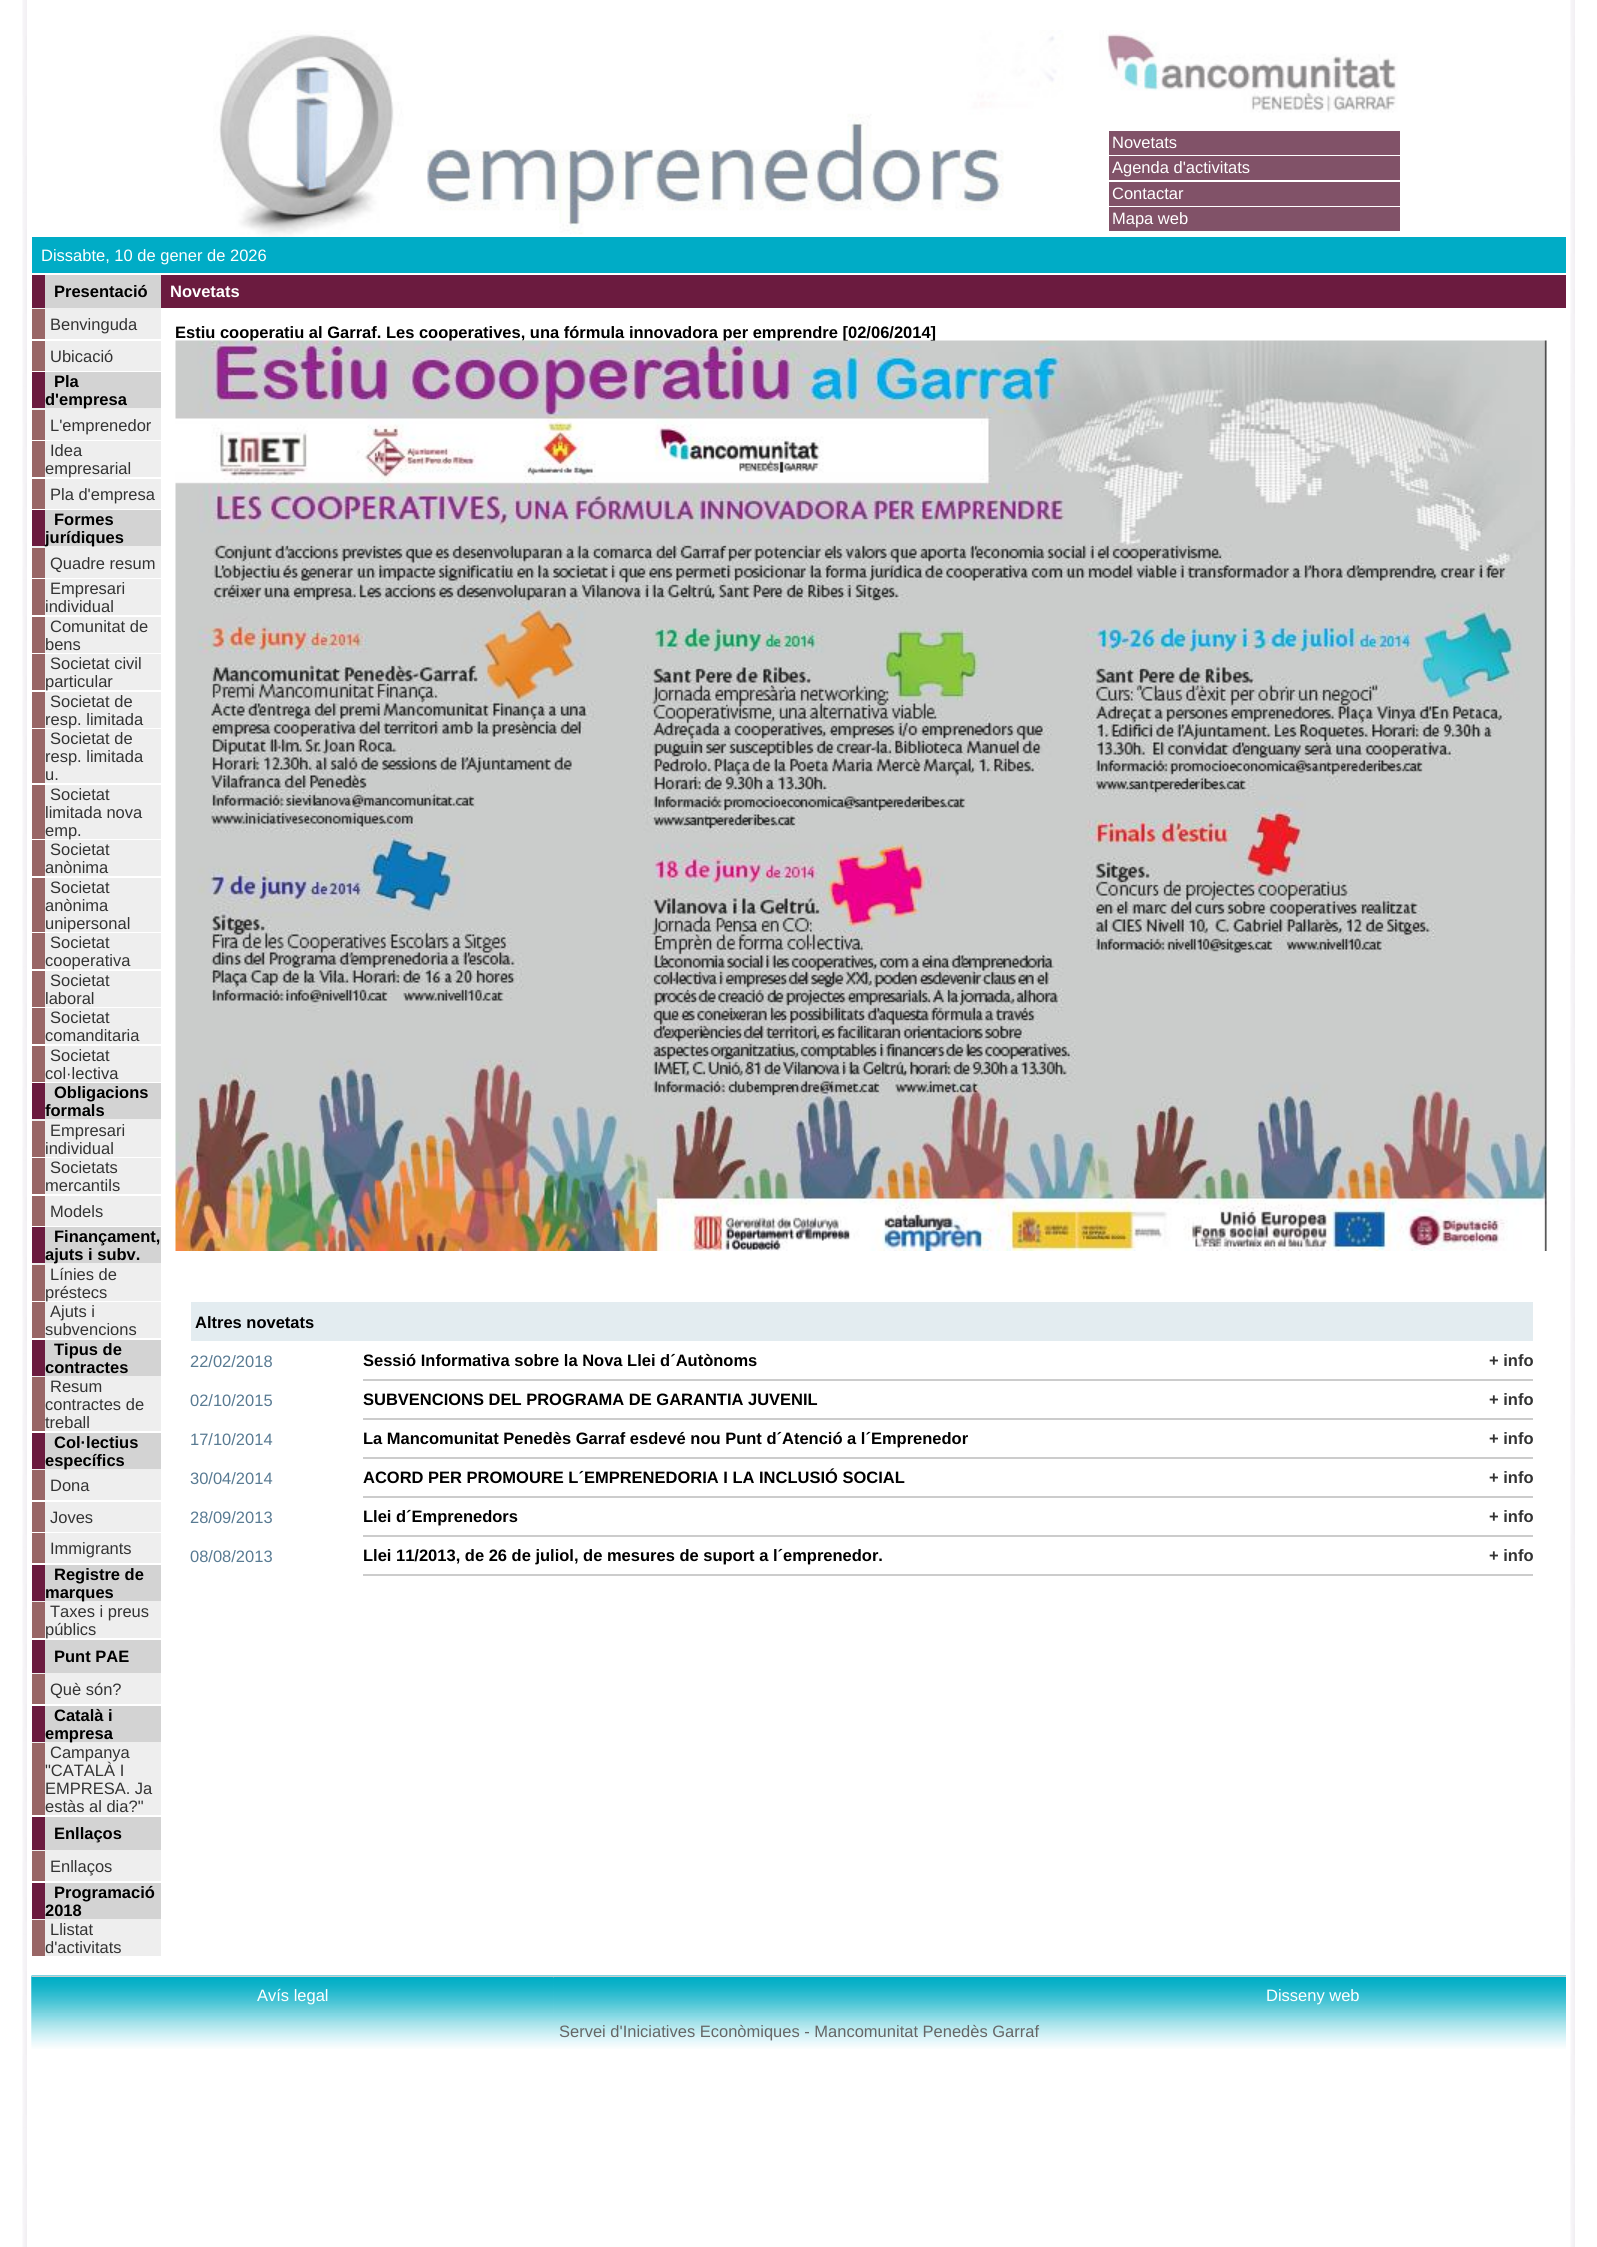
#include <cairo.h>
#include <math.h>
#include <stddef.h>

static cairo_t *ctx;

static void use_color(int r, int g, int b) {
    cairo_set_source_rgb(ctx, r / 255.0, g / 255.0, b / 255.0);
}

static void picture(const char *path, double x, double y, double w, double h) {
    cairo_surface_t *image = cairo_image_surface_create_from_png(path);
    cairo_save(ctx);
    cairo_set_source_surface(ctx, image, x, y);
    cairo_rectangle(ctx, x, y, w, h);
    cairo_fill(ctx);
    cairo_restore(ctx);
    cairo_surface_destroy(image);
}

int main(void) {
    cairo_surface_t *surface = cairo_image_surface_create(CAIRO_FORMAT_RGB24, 1597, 2247);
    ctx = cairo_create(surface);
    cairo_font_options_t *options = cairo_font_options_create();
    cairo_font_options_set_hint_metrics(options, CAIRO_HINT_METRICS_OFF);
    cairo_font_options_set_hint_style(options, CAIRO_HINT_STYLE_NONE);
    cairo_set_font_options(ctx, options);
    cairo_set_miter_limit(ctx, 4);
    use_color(255, 255, 255);
    cairo_paint(ctx);
    picture("img1.png", 22, 0, 5, 2247);
    picture("img2.png", 213, 30, 896, 207);
    picture("img3.png", 1108, 30, 290, 83);
    use_color(129, 82, 104);
    cairo_rectangle(ctx, 1109, 131, 291, 24);
    cairo_fill(ctx);
    cairo_select_font_face(ctx, "Liberation Sans", CAIRO_FONT_SLANT_NORMAL, CAIRO_FONT_WEIGHT_NORMAL);
    cairo_set_font_size(ctx, 16.5);
    use_color(255, 255, 255);
    cairo_move_to(ctx, 1112, 148);
    cairo_show_text(ctx, "Novetats");
    use_color(129, 82, 104);
    cairo_rectangle(ctx, 1109, 156, 291, 24);
    cairo_fill(ctx);
    use_color(255, 255, 255);
    cairo_move_to(ctx, 1112, 173);
    cairo_show_text(ctx, "Agenda d'activitats");
    use_color(129, 82, 104);
    cairo_rectangle(ctx, 1109, 182, 291, 24);
    cairo_fill(ctx);
    use_color(255, 255, 255);
    cairo_move_to(ctx, 1112, 199);
    cairo_show_text(ctx, "Contactar");
    use_color(129, 82, 104);
    cairo_rectangle(ctx, 1109, 207, 291, 24);
    cairo_fill(ctx);
    use_color(255, 255, 255);
    cairo_move_to(ctx, 1112, 224);
    cairo_show_text(ctx, "Mapa web");
    use_color(0, 172, 198);
    cairo_rectangle(ctx, 32, 237, 1534, 36);
    cairo_fill(ctx);
    use_color(255, 255, 255);
    cairo_move_to(ctx, 41, 261);
    cairo_show_text(ctx, "Dissabte, 10 de gener de 2026");
    use_color(238, 238, 238);
    cairo_rectangle(ctx, 32, 308, 129, 1648);
    cairo_fill(ctx);
    use_color(107, 27, 63);
    cairo_rectangle(ctx, 32, 275, 13, 33);
    cairo_fill(ctx);
    use_color(211, 211, 211);
    cairo_rectangle(ctx, 45, 275, 116, 33);
    cairo_fill(ctx);
    cairo_select_font_face(ctx, "Liberation Sans", CAIRO_FONT_SLANT_NORMAL, CAIRO_FONT_WEIGHT_BOLD);
    use_color(0, 0, 0);
    cairo_move_to(ctx, 54, 297);
    cairo_show_text(ctx, "Presentació");
    use_color(153, 102, 102);
    cairo_rectangle(ctx, 32, 309, 13, 30);
    cairo_fill(ctx);
    cairo_select_font_face(ctx, "Liberation Sans", CAIRO_FONT_SLANT_NORMAL, CAIRO_FONT_WEIGHT_NORMAL);
    use_color(51, 51, 51);
    cairo_move_to(ctx, 50, 330);
    cairo_show_text(ctx, "Benvinguda");
    use_color(255, 255, 255);
    cairo_rectangle(ctx, 32, 339, 129, 2);
    cairo_fill(ctx);
    use_color(153, 102, 102);
    cairo_rectangle(ctx, 32, 341, 13, 30);
    cairo_fill(ctx);
    use_color(51, 51, 51);
    cairo_move_to(ctx, 50, 362);
    cairo_show_text(ctx, "Ubicació");
    use_color(255, 255, 255);
    cairo_rectangle(ctx, 32, 371, 129, 1);
    cairo_fill(ctx);
    use_color(107, 27, 63);
    cairo_rectangle(ctx, 32, 372, 13, 36);
    cairo_fill(ctx);
    use_color(211, 211, 211);
    cairo_rectangle(ctx, 45, 372, 116, 36);
    cairo_fill(ctx);
    cairo_select_font_face(ctx, "Liberation Sans", CAIRO_FONT_SLANT_NORMAL, CAIRO_FONT_WEIGHT_BOLD);
    use_color(0, 0, 0);
    cairo_move_to(ctx, 54, 387);
    cairo_show_text(ctx, "Pla");
    cairo_move_to(ctx, 45, 405);
    cairo_show_text(ctx, "d'empresa");
    use_color(153, 102, 102);
    cairo_rectangle(ctx, 32, 410, 13, 30);
    cairo_fill(ctx);
    cairo_select_font_face(ctx, "Liberation Sans", CAIRO_FONT_SLANT_NORMAL, CAIRO_FONT_WEIGHT_NORMAL);
    use_color(51, 51, 51);
    cairo_move_to(ctx, 50, 431);
    cairo_show_text(ctx, "L'emprenedor");
    use_color(255, 255, 255);
    cairo_rectangle(ctx, 32, 440, 129, 1);
    cairo_fill(ctx);
    use_color(153, 102, 102);
    cairo_rectangle(ctx, 32, 441, 13, 36);
    cairo_fill(ctx);
    use_color(51, 51, 51);
    cairo_move_to(ctx, 50, 456);
    cairo_show_text(ctx, "Idea");
    use_color(255, 255, 255);
    cairo_rectangle(ctx, 32, 477, 129, 2);
    cairo_fill(ctx);
    use_color(51, 51, 51);
    cairo_move_to(ctx, 45, 474);
    cairo_show_text(ctx, "empresarial");
    use_color(153, 102, 102);
    cairo_rectangle(ctx, 32, 479, 13, 30);
    cairo_fill(ctx);
    use_color(51, 51, 51);
    cairo_move_to(ctx, 50, 500);
    cairo_show_text(ctx, "Pla d'empresa");
    use_color(255, 255, 255);
    cairo_rectangle(ctx, 32, 509, 129, 1);
    cairo_fill(ctx);
    use_color(107, 27, 63);
    cairo_rectangle(ctx, 32, 510, 13, 36);
    cairo_fill(ctx);
    use_color(211, 211, 211);
    cairo_rectangle(ctx, 45, 510, 116, 36);
    cairo_fill(ctx);
    cairo_select_font_face(ctx, "Liberation Sans", CAIRO_FONT_SLANT_NORMAL, CAIRO_FONT_WEIGHT_BOLD);
    use_color(0, 0, 0);
    cairo_move_to(ctx, 54, 525);
    cairo_show_text(ctx, "Formes");
    cairo_move_to(ctx, 45, 543);
    cairo_show_text(ctx, "jurídiques");
    use_color(153, 102, 102);
    cairo_rectangle(ctx, 32, 548, 13, 30);
    cairo_fill(ctx);
    cairo_select_font_face(ctx, "Liberation Sans", CAIRO_FONT_SLANT_NORMAL, CAIRO_FONT_WEIGHT_NORMAL);
    use_color(51, 51, 51);
    cairo_move_to(ctx, 50, 569);
    cairo_show_text(ctx, "Quadre resum");
    use_color(255, 255, 255);
    cairo_rectangle(ctx, 32, 578, 129, 1);
    cairo_fill(ctx);
    use_color(153, 102, 102);
    cairo_rectangle(ctx, 32, 579, 13, 36);
    cairo_fill(ctx);
    use_color(51, 51, 51);
    cairo_move_to(ctx, 50, 594);
    cairo_show_text(ctx, "Empresari");
    cairo_move_to(ctx, 45, 612);
    cairo_show_text(ctx, "individual");
    use_color(255, 255, 255);
    cairo_rectangle(ctx, 32, 615, 129, 2);
    cairo_fill(ctx);
    use_color(153, 102, 102);
    cairo_rectangle(ctx, 32, 617, 13, 36);
    cairo_fill(ctx);
    use_color(51, 51, 51);
    cairo_move_to(ctx, 50, 632);
    cairo_show_text(ctx, "Comunitat de");
    cairo_move_to(ctx, 45, 650);
    cairo_show_text(ctx, "bens");
    use_color(255, 255, 255);
    cairo_rectangle(ctx, 32, 653, 129, 1);
    cairo_fill(ctx);
    use_color(153, 102, 102);
    cairo_rectangle(ctx, 32, 654, 13, 36);
    cairo_fill(ctx);
    use_color(51, 51, 51);
    cairo_move_to(ctx, 50, 669);
    cairo_show_text(ctx, "Societat civil");
    use_color(255, 255, 255);
    cairo_rectangle(ctx, 32, 690, 129, 2);
    cairo_fill(ctx);
    use_color(51, 51, 51);
    cairo_move_to(ctx, 45, 687);
    cairo_show_text(ctx, "particular");
    use_color(153, 102, 102);
    cairo_rectangle(ctx, 32, 692, 13, 36);
    cairo_fill(ctx);
    use_color(51, 51, 51);
    cairo_move_to(ctx, 50, 707);
    cairo_show_text(ctx, "Societat de");
    use_color(255, 255, 255);
    cairo_rectangle(ctx, 32, 728, 129, 1);
    cairo_fill(ctx);
    use_color(51, 51, 51);
    cairo_move_to(ctx, 45, 725);
    cairo_show_text(ctx, "resp. limitada");
    use_color(153, 102, 102);
    cairo_rectangle(ctx, 32, 729, 13, 54);
    cairo_fill(ctx);
    use_color(51, 51, 51);
    cairo_move_to(ctx, 50, 744);
    cairo_show_text(ctx, "Societat de");
    cairo_move_to(ctx, 45, 762);
    cairo_show_text(ctx, "resp. limitada");
    cairo_move_to(ctx, 45, 780);
    cairo_show_text(ctx, "u.");
    use_color(255, 255, 255);
    cairo_rectangle(ctx, 32, 783, 129, 2);
    cairo_fill(ctx);
    use_color(153, 102, 102);
    cairo_rectangle(ctx, 32, 785, 13, 54);
    cairo_fill(ctx);
    use_color(51, 51, 51);
    cairo_move_to(ctx, 50, 800);
    cairo_show_text(ctx, "Societat");
    cairo_move_to(ctx, 45, 818);
    cairo_show_text(ctx, "limitada nova");
    use_color(255, 255, 255);
    cairo_rectangle(ctx, 32, 839, 129, 1);
    cairo_fill(ctx);
    use_color(51, 51, 51);
    cairo_move_to(ctx, 45, 836);
    cairo_show_text(ctx, "emp.");
    use_color(153, 102, 102);
    cairo_rectangle(ctx, 32, 840, 13, 36);
    cairo_fill(ctx);
    use_color(51, 51, 51);
    cairo_move_to(ctx, 50, 855);
    cairo_show_text(ctx, "Societat");
    cairo_move_to(ctx, 45, 873);
    cairo_show_text(ctx, "anònima");
    use_color(255, 255, 255);
    cairo_rectangle(ctx, 32, 876, 129, 2);
    cairo_fill(ctx);
    use_color(153, 102, 102);
    cairo_rectangle(ctx, 32, 878, 13, 54);
    cairo_fill(ctx);
    use_color(51, 51, 51);
    cairo_move_to(ctx, 50, 893);
    cairo_show_text(ctx, "Societat");
    cairo_move_to(ctx, 45, 911);
    cairo_show_text(ctx, "anònima");
    use_color(255, 255, 255);
    cairo_rectangle(ctx, 32, 932, 129, 1);
    cairo_fill(ctx);
    use_color(51, 51, 51);
    cairo_move_to(ctx, 45, 929);
    cairo_show_text(ctx, "unipersonal");
    use_color(153, 102, 102);
    cairo_rectangle(ctx, 32, 933, 13, 36);
    cairo_fill(ctx);
    use_color(51, 51, 51);
    cairo_move_to(ctx, 50, 948);
    cairo_show_text(ctx, "Societat");
    use_color(255, 255, 255);
    cairo_rectangle(ctx, 32, 969, 129, 2);
    cairo_fill(ctx);
    use_color(51, 51, 51);
    cairo_move_to(ctx, 45, 966);
    cairo_show_text(ctx, "cooperativa");
    use_color(153, 102, 102);
    cairo_rectangle(ctx, 32, 971, 13, 36);
    cairo_fill(ctx);
    use_color(51, 51, 51);
    cairo_move_to(ctx, 50, 986);
    cairo_show_text(ctx, "Societat");
    cairo_move_to(ctx, 45, 1004);
    cairo_show_text(ctx, "laboral");
    use_color(255, 255, 255);
    cairo_rectangle(ctx, 32, 1007, 129, 1);
    cairo_fill(ctx);
    use_color(153, 102, 102);
    cairo_rectangle(ctx, 32, 1008, 13, 36);
    cairo_fill(ctx);
    use_color(51, 51, 51);
    cairo_move_to(ctx, 50, 1023);
    cairo_show_text(ctx, "Societat");
    cairo_move_to(ctx, 45, 1041);
    cairo_show_text(ctx, "comanditaria");
    use_color(255, 255, 255);
    cairo_rectangle(ctx, 32, 1044, 129, 2);
    cairo_fill(ctx);
    use_color(153, 102, 102);
    cairo_rectangle(ctx, 32, 1046, 13, 36);
    cairo_fill(ctx);
    use_color(51, 51, 51);
    cairo_move_to(ctx, 50, 1061);
    cairo_show_text(ctx, "Societat");
    cairo_move_to(ctx, 45, 1079);
    cairo_show_text(ctx, "col·lectiva");
    use_color(255, 255, 255);
    cairo_rectangle(ctx, 32, 1082, 129, 1);
    cairo_fill(ctx);
    use_color(107, 27, 63);
    cairo_rectangle(ctx, 32, 1083, 13, 36);
    cairo_fill(ctx);
    use_color(211, 211, 211);
    cairo_rectangle(ctx, 45, 1083, 116, 36);
    cairo_fill(ctx);
    cairo_select_font_face(ctx, "Liberation Sans", CAIRO_FONT_SLANT_NORMAL, CAIRO_FONT_WEIGHT_BOLD);
    use_color(0, 0, 0);
    cairo_move_to(ctx, 54, 1098);
    cairo_show_text(ctx, "Obligacions");
    cairo_move_to(ctx, 45, 1116);
    cairo_show_text(ctx, "formals");
    use_color(153, 102, 102);
    cairo_rectangle(ctx, 32, 1121, 13, 36);
    cairo_fill(ctx);
    cairo_select_font_face(ctx, "Liberation Sans", CAIRO_FONT_SLANT_NORMAL, CAIRO_FONT_WEIGHT_NORMAL);
    use_color(51, 51, 51);
    cairo_move_to(ctx, 50, 1136);
    cairo_show_text(ctx, "Empresari");
    cairo_move_to(ctx, 45, 1154);
    cairo_show_text(ctx, "individual");
    use_color(255, 255, 255);
    cairo_rectangle(ctx, 32, 1157, 129, 1);
    cairo_fill(ctx);
    use_color(153, 102, 102);
    cairo_rectangle(ctx, 32, 1158, 13, 36);
    cairo_fill(ctx);
    use_color(51, 51, 51);
    cairo_move_to(ctx, 50, 1173);
    cairo_show_text(ctx, "Societats");
    cairo_move_to(ctx, 45, 1191);
    cairo_show_text(ctx, "mercantils");
    use_color(255, 255, 255);
    cairo_rectangle(ctx, 32, 1194, 129, 2);
    cairo_fill(ctx);
    use_color(153, 102, 102);
    cairo_rectangle(ctx, 32, 1196, 13, 30);
    cairo_fill(ctx);
    use_color(51, 51, 51);
    cairo_move_to(ctx, 50, 1217);
    cairo_show_text(ctx, "Models");
    use_color(255, 255, 255);
    cairo_rectangle(ctx, 32, 1226, 129, 1);
    cairo_fill(ctx);
    use_color(107, 27, 63);
    cairo_rectangle(ctx, 32, 1227, 13, 36);
    cairo_fill(ctx);
    use_color(211, 211, 211);
    cairo_rectangle(ctx, 45, 1227, 116, 36);
    cairo_fill(ctx);
    cairo_select_font_face(ctx, "Liberation Sans", CAIRO_FONT_SLANT_NORMAL, CAIRO_FONT_WEIGHT_BOLD);
    use_color(0, 0, 0);
    cairo_move_to(ctx, 54, 1242);
    cairo_show_text(ctx, "Finançament,");
    cairo_move_to(ctx, 45, 1260);
    cairo_show_text(ctx, "ajuts i subv.");
    use_color(153, 102, 102);
    cairo_rectangle(ctx, 32, 1265, 13, 36);
    cairo_fill(ctx);
    cairo_select_font_face(ctx, "Liberation Sans", CAIRO_FONT_SLANT_NORMAL, CAIRO_FONT_WEIGHT_NORMAL);
    use_color(51, 51, 51);
    cairo_move_to(ctx, 50, 1280);
    cairo_show_text(ctx, "Línies de");
    use_color(255, 255, 255);
    cairo_rectangle(ctx, 32, 1301, 129, 1);
    cairo_fill(ctx);
    use_color(51, 51, 51);
    cairo_move_to(ctx, 45, 1298);
    cairo_show_text(ctx, "préstecs");
    use_color(153, 102, 102);
    cairo_rectangle(ctx, 32, 1302, 13, 36);
    cairo_fill(ctx);
    use_color(51, 51, 51);
    cairo_move_to(ctx, 50, 1317);
    cairo_show_text(ctx, "Ajuts i");
    cairo_move_to(ctx, 45, 1335);
    cairo_show_text(ctx, "subvencions");
    use_color(255, 255, 255);
    cairo_rectangle(ctx, 32, 1338, 129, 2);
    cairo_fill(ctx);
    use_color(107, 27, 63);
    cairo_rectangle(ctx, 32, 1340, 13, 36);
    cairo_fill(ctx);
    use_color(211, 211, 211);
    cairo_rectangle(ctx, 45, 1340, 116, 36);
    cairo_fill(ctx);
    cairo_select_font_face(ctx, "Liberation Sans", CAIRO_FONT_SLANT_NORMAL, CAIRO_FONT_WEIGHT_BOLD);
    use_color(0, 0, 0);
    cairo_move_to(ctx, 54, 1355);
    cairo_show_text(ctx, "Tipus de");
    cairo_move_to(ctx, 45, 1373);
    cairo_show_text(ctx, "contractes");
    use_color(153, 102, 102);
    cairo_rectangle(ctx, 32, 1377, 13, 54);
    cairo_fill(ctx);
    cairo_select_font_face(ctx, "Liberation Sans", CAIRO_FONT_SLANT_NORMAL, CAIRO_FONT_WEIGHT_NORMAL);
    use_color(51, 51, 51);
    cairo_move_to(ctx, 50, 1392);
    cairo_show_text(ctx, "Resum");
    cairo_move_to(ctx, 45, 1410);
    cairo_show_text(ctx, "contractes de");
    cairo_move_to(ctx, 45, 1428);
    cairo_show_text(ctx, "treball");
    use_color(255, 255, 255);
    cairo_rectangle(ctx, 32, 1431, 129, 2);
    cairo_fill(ctx);
    use_color(107, 27, 63);
    cairo_rectangle(ctx, 32, 1433, 13, 36);
    cairo_fill(ctx);
    use_color(211, 211, 211);
    cairo_rectangle(ctx, 45, 1433, 116, 36);
    cairo_fill(ctx);
    cairo_select_font_face(ctx, "Liberation Sans", CAIRO_FONT_SLANT_NORMAL, CAIRO_FONT_WEIGHT_BOLD);
    use_color(0, 0, 0);
    cairo_move_to(ctx, 54, 1448);
    cairo_show_text(ctx, "Col·lectius");
    cairo_move_to(ctx, 45, 1466);
    cairo_show_text(ctx, "específics");
    use_color(153, 102, 102);
    cairo_rectangle(ctx, 32, 1470, 13, 30);
    cairo_fill(ctx);
    cairo_select_font_face(ctx, "Liberation Sans", CAIRO_FONT_SLANT_NORMAL, CAIRO_FONT_WEIGHT_NORMAL);
    use_color(51, 51, 51);
    cairo_move_to(ctx, 50, 1491);
    cairo_show_text(ctx, "Dona");
    use_color(255, 255, 255);
    cairo_rectangle(ctx, 32, 1500, 129, 2);
    cairo_fill(ctx);
    use_color(153, 102, 102);
    cairo_rectangle(ctx, 32, 1502, 13, 30);
    cairo_fill(ctx);
    use_color(51, 51, 51);
    cairo_move_to(ctx, 50, 1523);
    cairo_show_text(ctx, "Joves");
    use_color(255, 255, 255);
    cairo_rectangle(ctx, 32, 1532, 129, 1);
    cairo_fill(ctx);
    use_color(153, 102, 102);
    cairo_rectangle(ctx, 32, 1533, 13, 30);
    cairo_fill(ctx);
    use_color(51, 51, 51);
    cairo_move_to(ctx, 50, 1554);
    cairo_show_text(ctx, "Immigrants");
    use_color(255, 255, 255);
    cairo_rectangle(ctx, 32, 1563, 129, 2);
    cairo_fill(ctx);
    use_color(107, 27, 63);
    cairo_rectangle(ctx, 32, 1565, 13, 36);
    cairo_fill(ctx);
    use_color(211, 211, 211);
    cairo_rectangle(ctx, 45, 1565, 116, 36);
    cairo_fill(ctx);
    cairo_select_font_face(ctx, "Liberation Sans", CAIRO_FONT_SLANT_NORMAL, CAIRO_FONT_WEIGHT_BOLD);
    use_color(0, 0, 0);
    cairo_move_to(ctx, 54, 1580);
    cairo_show_text(ctx, "Registre de");
    cairo_move_to(ctx, 45, 1598);
    cairo_show_text(ctx, "marques");
    use_color(153, 102, 102);
    cairo_rectangle(ctx, 32, 1602, 13, 36);
    cairo_fill(ctx);
    cairo_select_font_face(ctx, "Liberation Sans", CAIRO_FONT_SLANT_NORMAL, CAIRO_FONT_WEIGHT_NORMAL);
    use_color(51, 51, 51);
    cairo_move_to(ctx, 50, 1617);
    cairo_show_text(ctx, "Taxes i preus");
    use_color(255, 255, 255);
    cairo_rectangle(ctx, 32, 1638, 129, 2);
    cairo_fill(ctx);
    use_color(51, 51, 51);
    cairo_move_to(ctx, 45, 1635);
    cairo_show_text(ctx, "públics");
    use_color(107, 27, 63);
    cairo_rectangle(ctx, 32, 1640, 13, 33);
    cairo_fill(ctx);
    use_color(211, 211, 211);
    cairo_rectangle(ctx, 45, 1640, 116, 33);
    cairo_fill(ctx);
    cairo_select_font_face(ctx, "Liberation Sans", CAIRO_FONT_SLANT_NORMAL, CAIRO_FONT_WEIGHT_BOLD);
    use_color(0, 0, 0);
    cairo_move_to(ctx, 54, 1662);
    cairo_show_text(ctx, "Punt PAE");
    use_color(153, 102, 102);
    cairo_rectangle(ctx, 32, 1674, 13, 30);
    cairo_fill(ctx);
    cairo_select_font_face(ctx, "Liberation Sans", CAIRO_FONT_SLANT_NORMAL, CAIRO_FONT_WEIGHT_NORMAL);
    use_color(51, 51, 51);
    cairo_move_to(ctx, 50, 1695);
    cairo_show_text(ctx, "Què són?");
    use_color(255, 255, 255);
    cairo_rectangle(ctx, 32, 1704, 129, 2);
    cairo_fill(ctx);
    use_color(107, 27, 63);
    cairo_rectangle(ctx, 32, 1706, 13, 36);
    cairo_fill(ctx);
    use_color(211, 211, 211);
    cairo_rectangle(ctx, 45, 1706, 116, 36);
    cairo_fill(ctx);
    cairo_select_font_face(ctx, "Liberation Sans", CAIRO_FONT_SLANT_NORMAL, CAIRO_FONT_WEIGHT_BOLD);
    use_color(0, 0, 0);
    cairo_move_to(ctx, 54, 1721);
    cairo_show_text(ctx, "Català i");
    cairo_move_to(ctx, 45, 1739);
    cairo_show_text(ctx, "empresa");
    use_color(153, 102, 102);
    cairo_rectangle(ctx, 32, 1743, 13, 72);
    cairo_fill(ctx);
    cairo_select_font_face(ctx, "Liberation Sans", CAIRO_FONT_SLANT_NORMAL, CAIRO_FONT_WEIGHT_NORMAL);
    use_color(51, 51, 51);
    cairo_move_to(ctx, 50, 1758);
    cairo_show_text(ctx, "Campanya");
    cairo_move_to(ctx, 45, 1776);
    cairo_show_text(ctx, "\"CATALÀ I");
    cairo_move_to(ctx, 45, 1794);
    cairo_show_text(ctx, "EMPRESA. Ja");
    cairo_move_to(ctx, 45, 1812);
    cairo_show_text(ctx, "estàs al dia?\"");
    use_color(255, 255, 255);
    cairo_rectangle(ctx, 32, 1815, 129, 2);
    cairo_fill(ctx);
    use_color(107, 27, 63);
    cairo_rectangle(ctx, 32, 1817, 13, 33);
    cairo_fill(ctx);
    use_color(211, 211, 211);
    cairo_rectangle(ctx, 45, 1817, 116, 33);
    cairo_fill(ctx);
    cairo_select_font_face(ctx, "Liberation Sans", CAIRO_FONT_SLANT_NORMAL, CAIRO_FONT_WEIGHT_BOLD);
    use_color(0, 0, 0);
    cairo_move_to(ctx, 54, 1839);
    cairo_show_text(ctx, "Enllaços");
    use_color(153, 102, 102);
    cairo_rectangle(ctx, 32, 1851, 13, 30);
    cairo_fill(ctx);
    cairo_select_font_face(ctx, "Liberation Sans", CAIRO_FONT_SLANT_NORMAL, CAIRO_FONT_WEIGHT_NORMAL);
    use_color(51, 51, 51);
    cairo_move_to(ctx, 50, 1872);
    cairo_show_text(ctx, "Enllaços");
    use_color(255, 255, 255);
    cairo_rectangle(ctx, 32, 1881, 129, 2);
    cairo_fill(ctx);
    use_color(107, 27, 63);
    cairo_rectangle(ctx, 32, 1883, 13, 36);
    cairo_fill(ctx);
    use_color(211, 211, 211);
    cairo_rectangle(ctx, 45, 1883, 116, 36);
    cairo_fill(ctx);
    cairo_select_font_face(ctx, "Liberation Sans", CAIRO_FONT_SLANT_NORMAL, CAIRO_FONT_WEIGHT_BOLD);
    use_color(0, 0, 0);
    cairo_move_to(ctx, 54, 1898);
    cairo_show_text(ctx, "Programació");
    cairo_move_to(ctx, 45, 1916);
    cairo_show_text(ctx, "2018");
    use_color(153, 102, 102);
    cairo_rectangle(ctx, 32, 1920, 13, 36);
    cairo_fill(ctx);
    cairo_select_font_face(ctx, "Liberation Sans", CAIRO_FONT_SLANT_NORMAL, CAIRO_FONT_WEIGHT_NORMAL);
    use_color(51, 51, 51);
    cairo_move_to(ctx, 50, 1935);
    cairo_show_text(ctx, "Llistat");
    cairo_move_to(ctx, 45, 1953);
    cairo_show_text(ctx, "d'activitats");
    use_color(107, 27, 63);
    cairo_rectangle(ctx, 161, 275, 1405, 33);
    cairo_fill(ctx);
    cairo_select_font_face(ctx, "Liberation Sans", CAIRO_FONT_SLANT_NORMAL, CAIRO_FONT_WEIGHT_BOLD);
    use_color(255, 255, 255);
    cairo_move_to(ctx, 170, 297);
    cairo_show_text(ctx, "Novetats");
    use_color(0, 0, 0);
    cairo_move_to(ctx, 175, 338);
    cairo_show_text(ctx, "Estiu cooperatiu al Garraf. Les cooperatives, una fórmula innovadora per emprendre [02/06/2014]");
    picture("img4.png", 175, 340, 1372, 911);
    use_color(227, 236, 240);
    cairo_rectangle(ctx, 191, 1302, 1342, 39);
    cairo_fill(ctx);
    use_color(0, 0, 0);
    cairo_move_to(ctx, 195, 1328);
    cairo_show_text(ctx, "Altres novetats");
    cairo_select_font_face(ctx, "Liberation Sans", CAIRO_FONT_SLANT_NORMAL, CAIRO_FONT_WEIGHT_NORMAL);
    use_color(88, 122, 146);
    cairo_move_to(ctx, 190, 1367);
    cairo_show_text(ctx, "22/02/2018");
    use_color(204, 204, 204);
    cairo_rectangle(ctx, 363, 1379, 1170, 2);
    cairo_fill(ctx);
    cairo_select_font_face(ctx, "Liberation Sans", CAIRO_FONT_SLANT_NORMAL, CAIRO_FONT_WEIGHT_BOLD);
    use_color(0, 0, 0);
    cairo_move_to(ctx, 363, 1366);
    cairo_show_text(ctx, "Sessió Informativa sobre la Nova Llei d´Autònoms");
    use_color(51, 51, 51);
    cairo_move_to(ctx, 1489, 1366);
    cairo_show_text(ctx, "+ info");
    cairo_select_font_face(ctx, "Liberation Sans", CAIRO_FONT_SLANT_NORMAL, CAIRO_FONT_WEIGHT_NORMAL);
    use_color(88, 122, 146);
    cairo_move_to(ctx, 190, 1406);
    cairo_show_text(ctx, "02/10/2015");
    use_color(204, 204, 204);
    cairo_rectangle(ctx, 363, 1418, 1170, 2);
    cairo_fill(ctx);
    cairo_select_font_face(ctx, "Liberation Sans", CAIRO_FONT_SLANT_NORMAL, CAIRO_FONT_WEIGHT_BOLD);
    use_color(0, 0, 0);
    cairo_move_to(ctx, 363, 1405);
    cairo_show_text(ctx, "SUBVENCIONS DEL PROGRAMA DE GARANTIA JUVENIL");
    use_color(51, 51, 51);
    cairo_move_to(ctx, 1489, 1405);
    cairo_show_text(ctx, "+ info");
    cairo_select_font_face(ctx, "Liberation Sans", CAIRO_FONT_SLANT_NORMAL, CAIRO_FONT_WEIGHT_NORMAL);
    use_color(88, 122, 146);
    cairo_move_to(ctx, 190, 1445);
    cairo_show_text(ctx, "17/10/2014");
    use_color(204, 204, 204);
    cairo_rectangle(ctx, 363, 1457, 1170, 2);
    cairo_fill(ctx);
    cairo_select_font_face(ctx, "Liberation Sans", CAIRO_FONT_SLANT_NORMAL, CAIRO_FONT_WEIGHT_BOLD);
    use_color(0, 0, 0);
    cairo_move_to(ctx, 363, 1444);
    cairo_show_text(ctx, "La Mancomunitat Penedès Garraf esdevé nou Punt d´Atenció a l´Emprenedor");
    use_color(51, 51, 51);
    cairo_move_to(ctx, 1489, 1444);
    cairo_show_text(ctx, "+ info");
    cairo_select_font_face(ctx, "Liberation Sans", CAIRO_FONT_SLANT_NORMAL, CAIRO_FONT_WEIGHT_NORMAL);
    use_color(88, 122, 146);
    cairo_move_to(ctx, 190, 1484);
    cairo_show_text(ctx, "30/04/2014");
    use_color(204, 204, 204);
    cairo_rectangle(ctx, 363, 1496, 1170, 2);
    cairo_fill(ctx);
    cairo_select_font_face(ctx, "Liberation Sans", CAIRO_FONT_SLANT_NORMAL, CAIRO_FONT_WEIGHT_BOLD);
    use_color(0, 0, 0);
    cairo_move_to(ctx, 363, 1483);
    cairo_show_text(ctx, "ACORD PER PROMOURE L´EMPRENEDORIA I LA INCLUSIÓ SOCIAL");
    use_color(51, 51, 51);
    cairo_move_to(ctx, 1489, 1483);
    cairo_show_text(ctx, "+ info");
    cairo_select_font_face(ctx, "Liberation Sans", CAIRO_FONT_SLANT_NORMAL, CAIRO_FONT_WEIGHT_NORMAL);
    use_color(88, 122, 146);
    cairo_move_to(ctx, 190, 1523);
    cairo_show_text(ctx, "28/09/2013");
    use_color(204, 204, 204);
    cairo_rectangle(ctx, 363, 1535, 1170, 2);
    cairo_fill(ctx);
    cairo_select_font_face(ctx, "Liberation Sans", CAIRO_FONT_SLANT_NORMAL, CAIRO_FONT_WEIGHT_BOLD);
    use_color(0, 0, 0);
    cairo_move_to(ctx, 363, 1522);
    cairo_show_text(ctx, "Llei d´Emprenedors");
    use_color(51, 51, 51);
    cairo_move_to(ctx, 1489, 1522);
    cairo_show_text(ctx, "+ info");
    cairo_select_font_face(ctx, "Liberation Sans", CAIRO_FONT_SLANT_NORMAL, CAIRO_FONT_WEIGHT_NORMAL);
    use_color(88, 122, 146);
    cairo_move_to(ctx, 190, 1562);
    cairo_show_text(ctx, "08/08/2013");
    use_color(204, 204, 204);
    cairo_rectangle(ctx, 363, 1574, 1170, 2);
    cairo_fill(ctx);
    cairo_select_font_face(ctx, "Liberation Sans", CAIRO_FONT_SLANT_NORMAL, CAIRO_FONT_WEIGHT_BOLD);
    use_color(0, 0, 0);
    cairo_move_to(ctx, 363, 1561);
    cairo_show_text(ctx, "Llei 11/2013, de 26 de juliol, de mesures de suport a l´emprenedor.");
    use_color(51, 51, 51);
    cairo_move_to(ctx, 1489, 1561);
    cairo_show_text(ctx, "+ info");
    picture("img5.png", 31, 1975, 1535, 72);
    use_color(204, 204, 204);
    cairo_rectangle(ctx, 32, 1976, 1534, 2);
    cairo_fill(ctx);
    picture("img6.png", 31, 1977, 523, 36);
    cairo_select_font_face(ctx, "Liberation Sans", CAIRO_FONT_SLANT_NORMAL, CAIRO_FONT_WEIGHT_NORMAL);
    use_color(255, 255, 255);
    cairo_move_to(ctx, 257, 2001);
    cairo_show_text(ctx, "Avís legal");
    picture("img7.png", 553, 1977, 506, 36);
    picture("img8.png", 1059, 1977, 507, 36);
    cairo_move_to(ctx, 1266, 2001);
    cairo_show_text(ctx, "Disseny web");
    picture("img9.png", 31, 2013, 1535, 36);
    use_color(102, 102, 102);
    cairo_move_to(ctx, 559, 2037);
    cairo_show_text(ctx, "Servei d'Iniciatives Econòmiques - Mancomunitat Penedès Garraf");
    picture("img10.png", 1570, 0, 5, 2247);
    cairo_surface_write_to_png(surface, "result.png");
    cairo_font_options_destroy(options);
    cairo_destroy(ctx);
    cairo_surface_destroy(surface);
    return 0;
}
